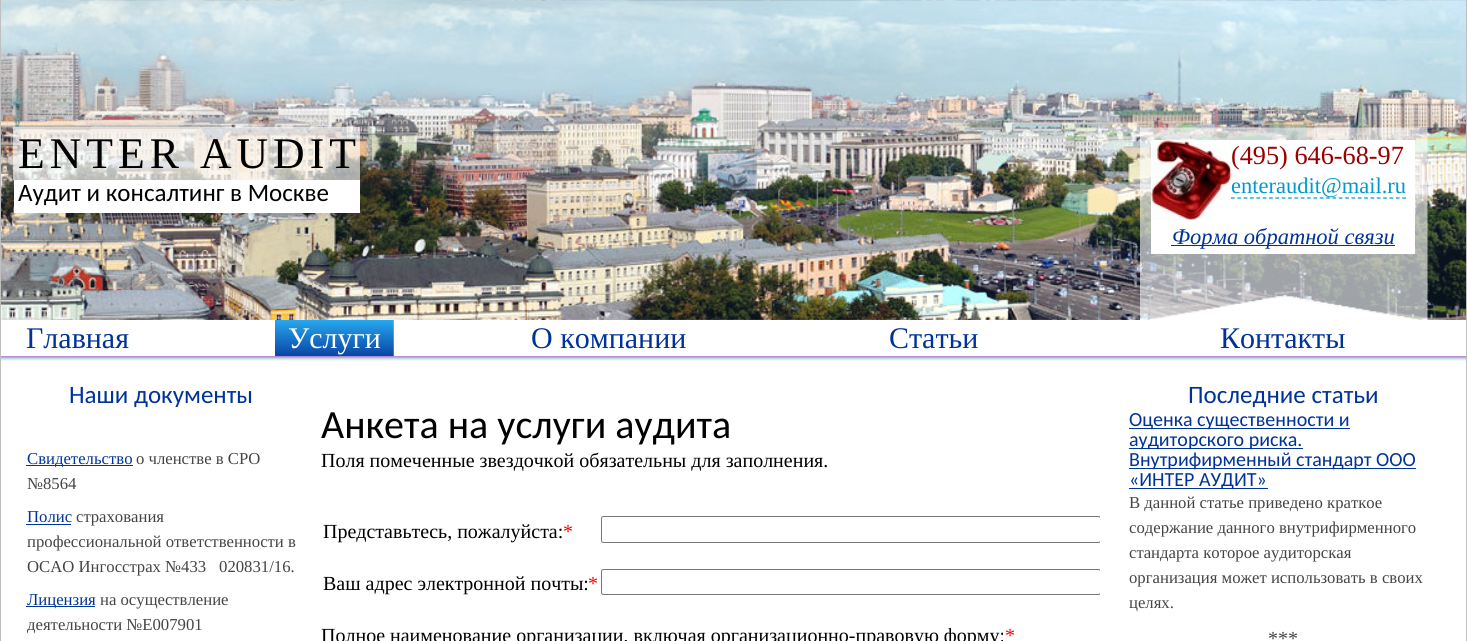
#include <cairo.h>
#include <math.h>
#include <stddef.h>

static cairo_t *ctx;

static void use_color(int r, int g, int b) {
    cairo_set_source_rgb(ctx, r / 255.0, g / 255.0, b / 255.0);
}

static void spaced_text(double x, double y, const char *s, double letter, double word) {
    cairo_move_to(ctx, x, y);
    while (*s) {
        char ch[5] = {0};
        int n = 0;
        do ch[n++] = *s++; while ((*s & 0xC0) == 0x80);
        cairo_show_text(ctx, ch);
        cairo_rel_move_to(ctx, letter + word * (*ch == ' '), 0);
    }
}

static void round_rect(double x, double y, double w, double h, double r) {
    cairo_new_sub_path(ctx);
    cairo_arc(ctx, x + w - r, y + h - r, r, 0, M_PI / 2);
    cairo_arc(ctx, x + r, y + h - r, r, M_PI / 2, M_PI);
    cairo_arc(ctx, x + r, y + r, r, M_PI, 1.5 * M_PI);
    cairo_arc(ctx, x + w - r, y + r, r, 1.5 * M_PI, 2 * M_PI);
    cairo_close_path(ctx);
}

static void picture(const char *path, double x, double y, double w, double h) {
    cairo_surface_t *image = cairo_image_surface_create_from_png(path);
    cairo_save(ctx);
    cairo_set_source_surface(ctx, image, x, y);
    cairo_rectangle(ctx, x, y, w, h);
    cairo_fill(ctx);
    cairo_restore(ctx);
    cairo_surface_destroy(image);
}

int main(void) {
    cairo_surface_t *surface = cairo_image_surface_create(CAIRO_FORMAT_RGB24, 1467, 641);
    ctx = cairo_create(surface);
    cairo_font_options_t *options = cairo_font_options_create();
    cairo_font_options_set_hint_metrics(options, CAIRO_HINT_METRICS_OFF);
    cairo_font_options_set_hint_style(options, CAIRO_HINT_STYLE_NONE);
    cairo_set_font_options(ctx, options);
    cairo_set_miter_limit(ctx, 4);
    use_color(255, 255, 255);
    cairo_paint(ctx);
    use_color(192, 192, 192);
    cairo_rectangle(ctx, 1466, 0, 1, 641);
    cairo_fill(ctx);
    cairo_rectangle(ctx, 0, 0, 1, 641);
    cairo_fill(ctx);
    picture("img1.png", 1, 0, 1465, 320);
    cairo_set_source_rgba(ctx, 1, 1, 1, 0.61);
    cairo_rectangle(ctx, 13, 127, 347, 53);
    cairo_fill(ctx);
    cairo_select_font_face(ctx, "Liberation Serif", CAIRO_FONT_SLANT_NORMAL, CAIRO_FONT_WEIGHT_NORMAL);
    cairo_set_font_size(ctx, 43.75);
    use_color(0, 0, 0);
    spaced_text(18, 168, "ENTER AUDIT", 5, 0);
    use_color(255, 255, 255);
    cairo_rectangle(ctx, 14, 180, 346, 33);
    cairo_fill(ctx);
    cairo_select_font_face(ctx, "Carlito", CAIRO_FONT_SLANT_NORMAL, CAIRO_FONT_WEIGHT_NORMAL);
    cairo_set_font_size(ctx, 25);
    use_color(0, 0, 0);
    cairo_move_to(ctx, 18, 201);
    cairo_show_text(ctx, "Аудит и консалтинг в Москве");
    picture("img2.png", 1140, 127, 288, 193);
    use_color(255, 255, 255);
    cairo_rectangle(ctx, 1151, 140, 264, 114);
    cairo_fill(ctx);
    picture("img3.png", 1151, 140, 81, 80);
    cairo_select_font_face(ctx, "Liberation Serif", CAIRO_FONT_SLANT_NORMAL, CAIRO_FONT_WEIGHT_NORMAL);
    cairo_set_font_size(ctx, 26.25);
    use_color(153, 0, 0);
    cairo_move_to(ctx, 1231, 164);
    cairo_show_text(ctx, "(495) 646-68-97");
    cairo_new_path(ctx);
    cairo_move_to(ctx, 1231, 198);
    cairo_line_to(ctx, 1406, 198);
    use_color(0, 153, 204);
    cairo_set_line_width(ctx, 1.2);
    cairo_set_dash(ctx, (double[]){3.75, 2.59}, 2, 0);
    cairo_stroke(ctx);
    cairo_set_font_size(ctx, 22.5);
    cairo_move_to(ctx, 1231, 193);
    cairo_show_text(ctx, "enteraudit@mail.ru");
    use_color(0, 51, 153);
    cairo_rectangle(ctx, 1171, 245, 224, 1);
    cairo_fill(ctx);
    cairo_select_font_face(ctx, "Liberation Serif", CAIRO_FONT_SLANT_ITALIC, CAIRO_FONT_WEIGHT_NORMAL);
    cairo_move_to(ctx, 1172, 244);
    cairo_show_text(ctx, "Форма обратной связи");
    cairo_select_font_face(ctx, "Liberation Serif", CAIRO_FONT_SLANT_NORMAL, CAIRO_FONT_WEIGHT_NORMAL);
    cairo_set_font_size(ctx, 30);
    cairo_move_to(ctx, 1220, 348);
    cairo_show_text(ctx, "Контакты");
    cairo_move_to(ctx, 26, 348);
    cairo_show_text(ctx, "Главная");
    picture("img5.png", 1, 356, 1465, 5);
    picture("img4.png", 275, 320, 119, 37);
    use_color(255, 255, 255);
    cairo_move_to(ctx, 288, 348);
    cairo_show_text(ctx, "Услуги");
    use_color(0, 51, 153);
    cairo_move_to(ctx, 531, 348);
    cairo_show_text(ctx, "О компании");
    cairo_move_to(ctx, 889, 348);
    cairo_show_text(ctx, "Статьи");
    cairo_select_font_face(ctx, "Carlito", CAIRO_FONT_SLANT_NORMAL, CAIRO_FONT_WEIGHT_NORMAL);
    cairo_set_font_size(ctx, 25);
    cairo_move_to(ctx, 69, 403);
    cairo_show_text(ctx, "Наши документы");
    cairo_rectangle(ctx, 26, 465, 107, 1);
    cairo_fill(ctx);
    cairo_select_font_face(ctx, "Liberation Serif", CAIRO_FONT_SLANT_NORMAL, CAIRO_FONT_WEIGHT_NORMAL);
    cairo_set_font_size(ctx, 16.7);
    cairo_move_to(ctx, 27, 464);
    cairo_show_text(ctx, "Свидетельство");
    use_color(68, 68, 68);
    cairo_move_to(ctx, 136, 464);
    cairo_show_text(ctx, "о членстве в СРО");
    cairo_move_to(ctx, 27, 489);
    cairo_show_text(ctx, "№8564");
    use_color(0, 51, 153);
    cairo_move_to(ctx, 27, 522);
    cairo_show_text(ctx, "Полис");
    cairo_rectangle(ctx, 26, 524, 45, 1);
    cairo_fill(ctx);
    use_color(68, 68, 68);
    cairo_move_to(ctx, 76, 522);
    cairo_show_text(ctx, "страхования");
    cairo_move_to(ctx, 27, 547);
    cairo_show_text(ctx, "профессиональной ответственности в");
    cairo_move_to(ctx, 27, 572);
    cairo_show_text(ctx, "ОСАО Ингосстрах №433‑020831/16.");
    use_color(0, 51, 153);
    cairo_rectangle(ctx, 26, 606, 69, 1);
    cairo_fill(ctx);
    cairo_move_to(ctx, 27, 605);
    cairo_show_text(ctx, "Лицензия");
    use_color(68, 68, 68);
    cairo_move_to(ctx, 100, 605);
    cairo_show_text(ctx, "на осуществление");
    cairo_move_to(ctx, 27, 630);
    cairo_show_text(ctx, "деятельности №Е007901");
    cairo_select_font_face(ctx, "Carlito", CAIRO_FONT_SLANT_NORMAL, CAIRO_FONT_WEIGHT_NORMAL);
    cairo_set_font_size(ctx, 40);
    use_color(0, 0, 0);
    cairo_move_to(ctx, 321, 438);
    cairo_show_text(ctx, "Анкета на услуги аудита");
    cairo_select_font_face(ctx, "Liberation Serif", CAIRO_FONT_SLANT_NORMAL, CAIRO_FONT_WEIGHT_NORMAL);
    cairo_set_font_size(ctx, 20);
    cairo_move_to(ctx, 321, 467);
    cairo_show_text(ctx, "Поля помеченные звездочкой обязательны для заполнения.");
    cairo_move_to(ctx, 323, 538);
    cairo_show_text(ctx, "Представьтесь, пожалуйста:");
    use_color(255, 0, 0);
    cairo_move_to(ctx, 563, 538);
    cairo_show_text(ctx, "*");
    cairo_save(ctx);
    cairo_rectangle(ctx, 321, 381, 779, 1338);
    cairo_clip(ctx);
    round_rect(601.5, 516.5, 499, 26, 2);
    use_color(118, 118, 118);
    cairo_set_line_width(ctx, 1);
    cairo_set_dash(ctx, NULL, 0, 0);
    cairo_stroke(ctx);
    cairo_restore(ctx);
    use_color(0, 0, 0);
    cairo_move_to(ctx, 323, 590);
    cairo_show_text(ctx, "Ваш адрес электронной почты:");
    use_color(255, 0, 0);
    cairo_move_to(ctx, 588, 590);
    cairo_show_text(ctx, "*");
    cairo_save(ctx);
    cairo_rectangle(ctx, 321, 381, 779, 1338);
    cairo_clip(ctx);
    round_rect(601.5, 569.5, 499, 25, 2);
    use_color(118, 118, 118);
    cairo_set_line_width(ctx, 1);
    cairo_set_dash(ctx, NULL, 0, 0);
    cairo_stroke(ctx);
    cairo_restore(ctx);
    use_color(0, 0, 0);
    cairo_move_to(ctx, 321, 642);
    cairo_show_text(ctx, "Полное наименование организации, включая организационно-правовую форму:");
    use_color(255, 0, 0);
    cairo_move_to(ctx, 1005, 642);
    cairo_show_text(ctx, "*");
    cairo_select_font_face(ctx, "Carlito", CAIRO_FONT_SLANT_NORMAL, CAIRO_FONT_WEIGHT_NORMAL);
    cairo_set_font_size(ctx, 25);
    use_color(0, 51, 153);
    cairo_move_to(ctx, 1188, 403);
    cairo_show_text(ctx, "Последние статьи");
    cairo_rectangle(ctx, 1129, 428, 221, 1);
    cairo_fill(ctx);
    cairo_set_font_size(ctx, 20);
    cairo_move_to(ctx, 1129, 426);
    cairo_show_text(ctx, "Оценка существенности и");
    cairo_rectangle(ctx, 1129, 448, 174, 1);
    cairo_fill(ctx);
    cairo_move_to(ctx, 1129, 446);
    cairo_show_text(ctx, "аудиторского риска.");
    cairo_rectangle(ctx, 1129, 468, 287, 1);
    cairo_fill(ctx);
    cairo_move_to(ctx, 1129, 466);
    cairo_show_text(ctx, "Внутрифирменный стандарт ООО");
    cairo_rectangle(ctx, 1129, 488, 139, 1);
    cairo_fill(ctx);
    cairo_move_to(ctx, 1129, 486);
    cairo_show_text(ctx, "«ИНТЕР АУДИТ»");
    cairo_select_font_face(ctx, "Liberation Serif", CAIRO_FONT_SLANT_NORMAL, CAIRO_FONT_WEIGHT_NORMAL);
    cairo_set_font_size(ctx, 16.7);
    use_color(68, 68, 68);
    cairo_move_to(ctx, 1129, 508);
    cairo_show_text(ctx, "В данной статье приведено краткое");
    cairo_move_to(ctx, 1129, 533);
    cairo_show_text(ctx, "содержание данного внутрифирменного");
    cairo_move_to(ctx, 1129, 558);
    cairo_show_text(ctx, "стандарта которое аудиторская");
    cairo_move_to(ctx, 1129, 583);
    cairo_show_text(ctx, "организация может использовать в своих");
    cairo_move_to(ctx, 1129, 608);
    cairo_show_text(ctx, "целях.");
    cairo_set_font_size(ctx, 20);
    cairo_move_to(ctx, 1268, 645);
    cairo_show_text(ctx, "***");
    cairo_surface_write_to_png(surface, "result.png");
    cairo_font_options_destroy(options);
    cairo_destroy(ctx);
    cairo_surface_destroy(surface);
    return 0;
}
